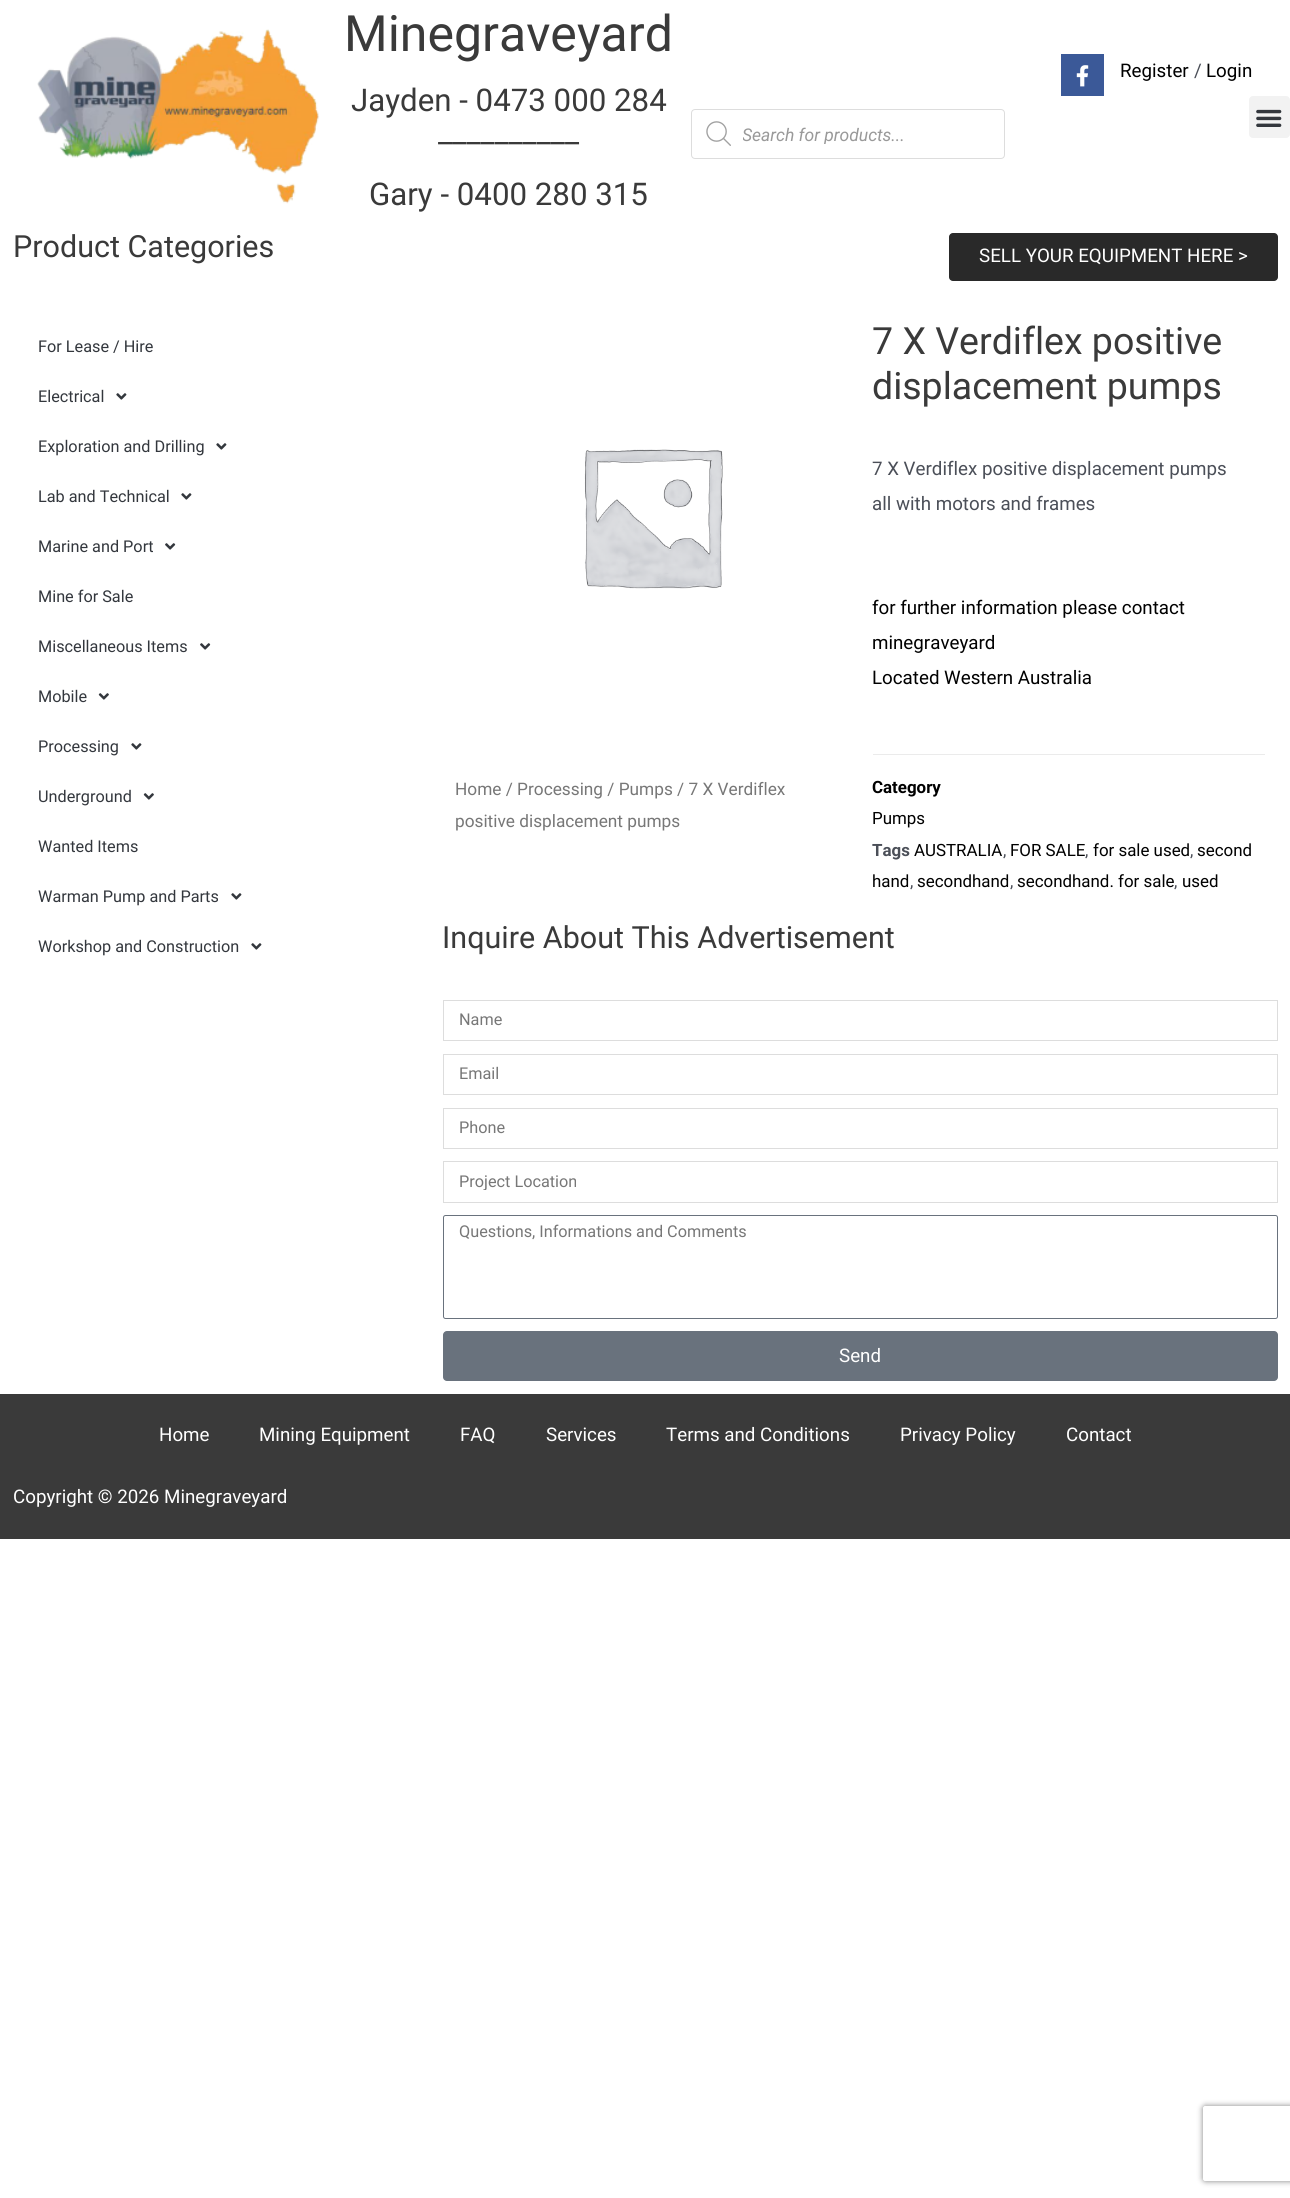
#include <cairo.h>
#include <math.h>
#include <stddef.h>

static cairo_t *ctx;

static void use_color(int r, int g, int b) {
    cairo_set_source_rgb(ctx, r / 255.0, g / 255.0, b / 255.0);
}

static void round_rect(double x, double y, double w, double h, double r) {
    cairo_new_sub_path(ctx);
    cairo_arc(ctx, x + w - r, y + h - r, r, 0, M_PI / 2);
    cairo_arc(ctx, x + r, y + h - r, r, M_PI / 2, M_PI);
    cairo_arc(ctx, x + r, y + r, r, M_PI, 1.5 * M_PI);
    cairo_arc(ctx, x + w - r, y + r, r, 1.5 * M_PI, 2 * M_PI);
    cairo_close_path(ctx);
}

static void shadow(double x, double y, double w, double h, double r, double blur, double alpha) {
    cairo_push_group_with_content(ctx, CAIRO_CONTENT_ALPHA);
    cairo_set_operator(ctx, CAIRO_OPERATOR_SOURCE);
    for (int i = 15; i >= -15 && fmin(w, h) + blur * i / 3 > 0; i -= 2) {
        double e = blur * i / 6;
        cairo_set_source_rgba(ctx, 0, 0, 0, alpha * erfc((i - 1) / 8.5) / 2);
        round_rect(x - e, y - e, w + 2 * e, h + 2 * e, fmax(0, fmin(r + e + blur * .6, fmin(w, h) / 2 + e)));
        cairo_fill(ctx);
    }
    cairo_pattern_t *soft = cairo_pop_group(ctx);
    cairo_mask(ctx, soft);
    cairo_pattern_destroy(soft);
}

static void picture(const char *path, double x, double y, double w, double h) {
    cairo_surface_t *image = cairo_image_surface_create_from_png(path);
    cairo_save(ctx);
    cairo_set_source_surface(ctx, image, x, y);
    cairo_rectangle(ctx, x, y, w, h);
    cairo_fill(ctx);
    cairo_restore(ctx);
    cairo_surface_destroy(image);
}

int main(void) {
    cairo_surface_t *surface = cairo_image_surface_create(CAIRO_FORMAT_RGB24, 1290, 2198);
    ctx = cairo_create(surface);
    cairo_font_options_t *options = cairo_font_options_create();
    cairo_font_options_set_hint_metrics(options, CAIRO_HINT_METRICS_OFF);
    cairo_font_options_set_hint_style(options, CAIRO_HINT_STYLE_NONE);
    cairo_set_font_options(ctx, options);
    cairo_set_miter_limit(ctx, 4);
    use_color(255, 255, 255);
    cairo_paint(ctx);
    picture("img1.png", 37, 29, 283, 175);
    cairo_select_font_face(ctx, "Roboto", CAIRO_FONT_SLANT_NORMAL, CAIRO_FONT_WEIGHT_NORMAL);
    cairo_set_font_size(ctx, 50);
    use_color(58, 58, 58);
    cairo_move_to(ctx, 344, 51);
    cairo_show_text(ctx, "Minegraveyard");
    cairo_set_font_size(ctx, 31.25);
    cairo_move_to(ctx, 351, 111);
    cairo_show_text(ctx, "Jayden - 0473 000 284");
    cairo_move_to(ctx, 438, 142);
    cairo_show_text(ctx, "__________");
    cairo_move_to(ctx, 369, 205);
    cairo_show_text(ctx, "Gary - 0400 280 315");
    use_color(59, 89, 152);
    cairo_rectangle(ctx, 1061, 54, 43, 42);
    cairo_fill(ctx);
    picture("img2.png", 1076, 65, 13, 22);
    cairo_set_font_size(ctx, 18.75);
    use_color(0, 0, 0);
    cairo_move_to(ctx, 1120, 77);
    cairo_show_text(ctx, "Register");
    use_color(75, 79, 88);
    cairo_move_to(ctx, 1194, 77);
    cairo_show_text(ctx, "/");
    use_color(0, 0, 0);
    cairo_move_to(ctx, 1206, 77);
    cairo_show_text(ctx, "Login");
    round_rect(691.5, 109.5, 313, 49, 3.5);
    use_color(221, 221, 221);
    cairo_set_line_width(ctx, 1);
    cairo_stroke(ctx);
    picture("img3.png", 706, 121, 25, 25);
    cairo_save(ctx);
    cairo_rectangle(ctx, 743, 124, 242, 20);
    cairo_clip(ctx);
    cairo_select_font_face(ctx, "Roboto", CAIRO_FONT_SLANT_ITALIC, CAIRO_FONT_WEIGHT_NORMAL);
    cairo_set_font_size(ctx, 17.5);
    use_color(153, 153, 153);
    cairo_move_to(ctx, 742, 141);
    cairo_show_text(ctx, "Search for products...");
    cairo_restore(ctx);
    use_color(242, 242, 242);
    round_rect(1249, 96, 41, 42, 4);
    cairo_fill(ctx);
    picture("img4.png", 1256, 109, 26, 18);
    cairo_set_font_size(ctx, 30.5);
    use_color(58, 58, 58);
    cairo_move_to(ctx, 13, 257);
    cairo_show_text(ctx, "Product Categories");
    cairo_set_font_size(ctx, 16.25);
    use_color(51, 55, 61);
    cairo_move_to(ctx, 38, 352);
    cairo_show_text(ctx, "For Lease / Hire");
    cairo_move_to(ctx, 38, 402);
    cairo_show_text(ctx, "Electrical");
    picture("img5.png", 116, 393, 11, 7);
    cairo_move_to(ctx, 38, 452);
    cairo_show_text(ctx, "Exploration and Drilling");
    picture("img5.png", 216, 443, 11, 7);
    cairo_move_to(ctx, 38, 502);
    cairo_show_text(ctx, "Lab and Technical");
    picture("img5.png", 181, 493, 11, 7);
    cairo_move_to(ctx, 38, 552);
    cairo_show_text(ctx, "Marine and Port");
    picture("img6.png", 165, 543, 11, 7);
    cairo_move_to(ctx, 38, 602);
    cairo_show_text(ctx, "Mine for Sale");
    cairo_move_to(ctx, 38, 652);
    cairo_show_text(ctx, "Miscellaneous Items");
    picture("img6.png", 200, 643, 11, 7);
    cairo_move_to(ctx, 38, 702);
    cairo_show_text(ctx, "Mobile");
    picture("img7.png", 98, 693, 11, 7);
    cairo_move_to(ctx, 38, 752);
    cairo_show_text(ctx, "Processing");
    picture("img5.png", 131, 743, 11, 7);
    cairo_move_to(ctx, 38, 802);
    cairo_show_text(ctx, "Underground");
    picture("img7.png", 143, 793, 11, 7);
    cairo_move_to(ctx, 38, 852);
    cairo_show_text(ctx, "Wanted Items");
    cairo_move_to(ctx, 38, 902);
    cairo_show_text(ctx, "Warman Pump and Parts");
    picture("img5.png", 231, 893, 11, 7);
    cairo_move_to(ctx, 38, 952);
    cairo_show_text(ctx, "Workshop and Construction");
    picture("img5.png", 251, 943, 11, 7);
    use_color(41, 41, 41);
    round_rect(949, 233, 329, 48, 4);
    cairo_fill(ctx);
    cairo_set_font_size(ctx, 18.75);
    use_color(255, 255, 255);
    cairo_move_to(ctx, 979, 262);
    cairo_show_text(ctx, "SELL YOUR EQUIPMENT HERE >");
    picture("img8.png", 584, 449, 139, 140);
    cairo_set_font_size(ctx, 17.25);
    use_color(119, 119, 119);
    cairo_move_to(ctx, 455, 795);
    cairo_show_text(ctx, "Home / Processing / Pumps / 7 X Verdiflex");
    cairo_move_to(ctx, 455, 827);
    cairo_show_text(ctx, "positive displacement pumps");
    cairo_set_font_size(ctx, 37.5);
    use_color(58, 58, 58);
    cairo_move_to(ctx, 872, 354);
    cairo_show_text(ctx, "7 X Verdiflex positive");
    cairo_move_to(ctx, 872, 399);
    cairo_show_text(ctx, "displacement pumps");
    cairo_set_font_size(ctx, 18.75);
    use_color(75, 79, 88);
    cairo_move_to(ctx, 872, 475);
    cairo_show_text(ctx, "7 X Verdiflex positive displacement pumps");
    cairo_move_to(ctx, 872, 510);
    cairo_show_text(ctx, "all with motors and frames");
    use_color(0, 0, 0);
    cairo_move_to(ctx, 872, 614);
    cairo_show_text(ctx, "for further information please contact");
    cairo_move_to(ctx, 872, 649);
    cairo_show_text(ctx, "minegraveyard");
    cairo_move_to(ctx, 872, 684);
    cairo_show_text(ctx, "Located Western Australia");
    use_color(235, 235, 235);
    cairo_rectangle(ctx, 873, 754, 392, 1);
    cairo_fill(ctx);
    cairo_select_font_face(ctx, "Roboto", CAIRO_FONT_SLANT_NORMAL, CAIRO_FONT_WEIGHT_BOLD);
    cairo_set_font_size(ctx, 16.9);
    use_color(0, 0, 0);
    cairo_move_to(ctx, 872, 793);
    cairo_show_text(ctx, "Category");
    cairo_select_font_face(ctx, "Roboto", CAIRO_FONT_SLANT_NORMAL, CAIRO_FONT_WEIGHT_NORMAL);
    cairo_move_to(ctx, 872, 824);
    cairo_show_text(ctx, "Pumps");
    cairo_select_font_face(ctx, "Roboto", CAIRO_FONT_SLANT_NORMAL, CAIRO_FONT_WEIGHT_BOLD);
    use_color(75, 79, 88);
    cairo_move_to(ctx, 872, 856);
    cairo_show_text(ctx, "Tags");
    cairo_select_font_face(ctx, "Roboto", CAIRO_FONT_SLANT_NORMAL, CAIRO_FONT_WEIGHT_NORMAL);
    use_color(0, 0, 0);
    cairo_move_to(ctx, 914, 856);
    cairo_show_text(ctx, "AUSTRALIA");
    use_color(75, 79, 88);
    cairo_move_to(ctx, 1003, 856);
    cairo_show_text(ctx, ",");
    use_color(0, 0, 0);
    cairo_move_to(ctx, 1010, 856);
    cairo_show_text(ctx, "FOR SALE");
    use_color(75, 79, 88);
    cairo_move_to(ctx, 1085, 856);
    cairo_show_text(ctx, ",");
    use_color(0, 0, 0);
    cairo_move_to(ctx, 1093, 856);
    cairo_show_text(ctx, "for sale used");
    use_color(75, 79, 88);
    cairo_move_to(ctx, 1190, 856);
    cairo_show_text(ctx, ",");
    use_color(0, 0, 0);
    cairo_move_to(ctx, 1197, 856);
    cairo_show_text(ctx, "second");
    cairo_move_to(ctx, 872, 887);
    cairo_show_text(ctx, "hand");
    use_color(75, 79, 88);
    cairo_move_to(ctx, 910, 887);
    cairo_show_text(ctx, ",");
    use_color(0, 0, 0);
    cairo_move_to(ctx, 917, 887);
    cairo_show_text(ctx, "secondhand");
    use_color(75, 79, 88);
    cairo_move_to(ctx, 1010, 887);
    cairo_show_text(ctx, ",");
    use_color(0, 0, 0);
    cairo_move_to(ctx, 1017, 887);
    cairo_show_text(ctx, "secondhand. for sale");
    use_color(75, 79, 88);
    cairo_move_to(ctx, 1174, 887);
    cairo_show_text(ctx, ",");
    use_color(0, 0, 0);
    cairo_move_to(ctx, 1182, 887);
    cairo_show_text(ctx, "used");
    cairo_set_font_size(ctx, 30.5);
    use_color(58, 58, 58);
    cairo_move_to(ctx, 442, 948);
    cairo_show_text(ctx, "Inquire About This Advertisement");
    cairo_rectangle(ctx, 443.5, 1000.5, 834, 40);
    use_color(221, 221, 221);
    cairo_stroke(ctx);
    cairo_set_font_size(ctx, 16.25);
    use_color(119, 119, 119);
    cairo_move_to(ctx, 459, 1025);
    cairo_show_text(ctx, "Name");
    cairo_rectangle(ctx, 443.5, 1054.5, 834, 40);
    use_color(221, 221, 221);
    cairo_stroke(ctx);
    use_color(119, 119, 119);
    cairo_move_to(ctx, 459, 1079);
    cairo_show_text(ctx, "Email");
    cairo_rectangle(ctx, 443.5, 1108.5, 834, 40);
    use_color(221, 221, 221);
    cairo_stroke(ctx);
    use_color(119, 119, 119);
    cairo_move_to(ctx, 459, 1133);
    cairo_show_text(ctx, "Phone");
    cairo_rectangle(ctx, 443.5, 1161.5, 834, 41);
    use_color(221, 221, 221);
    cairo_stroke(ctx);
    cairo_save(ctx);
    cairo_rectangle(ctx, 459, 1171, 802, 19);
    cairo_clip(ctx);
    use_color(119, 119, 119);
    cairo_move_to(ctx, 459, 1187);
    cairo_show_text(ctx, "Project Location");
    cairo_restore(ctx);
    round_rect(443.5, 1215.5, 834, 103, 2);
    use_color(105, 114, 125);
    cairo_stroke(ctx);
    use_color(119, 119, 119);
    cairo_move_to(ctx, 459, 1237);
    cairo_show_text(ctx, "Questions, Informations and Comments");
    use_color(105, 114, 125);
    round_rect(443, 1331, 835, 50, 4);
    cairo_fill(ctx);
    cairo_set_font_size(ctx, 18.75);
    use_color(255, 255, 255);
    cairo_move_to(ctx, 839, 1362);
    cairo_show_text(ctx, "Send");
    use_color(58, 58, 58);
    cairo_rectangle(ctx, 0, 1394, 1290, 145);
    cairo_fill(ctx);
    use_color(255, 255, 255);
    cairo_move_to(ctx, 159, 1441);
    cairo_show_text(ctx, "Home");
    cairo_move_to(ctx, 259, 1441);
    cairo_show_text(ctx, "Mining Equipment");
    cairo_move_to(ctx, 460, 1441);
    cairo_show_text(ctx, "FAQ");
    cairo_move_to(ctx, 546, 1441);
    cairo_show_text(ctx, "Services");
    cairo_move_to(ctx, 666, 1441);
    cairo_show_text(ctx, "Terms and Conditions");
    cairo_move_to(ctx, 900, 1441);
    cairo_show_text(ctx, "Privacy Policy");
    cairo_move_to(ctx, 1066, 1441);
    cairo_show_text(ctx, "Contact");
    cairo_move_to(ctx, 13, 1503);
    cairo_show_text(ctx, "Copyright © 2026 Minegraveyard");
    cairo_save(ctx);
    cairo_set_fill_rule(ctx, CAIRO_FILL_RULE_EVEN_ODD);
    cairo_new_path(ctx);
    cairo_move_to(ctx, 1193, 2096);
    cairo_line_to(ctx, 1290, 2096);
    cairo_line_to(ctx, 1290, 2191);
    cairo_line_to(ctx, 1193, 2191);
    cairo_close_path(ctx);
    cairo_move_to(ctx, 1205.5, 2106);
    cairo_line_to(ctx, 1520.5, 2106);
    cairo_curve_to(ctx, 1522, 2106, 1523, 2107, 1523, 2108.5);
    cairo_line_to(ctx, 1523, 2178.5);
    cairo_curve_to(ctx, 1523, 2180, 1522, 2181, 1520.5, 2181);
    cairo_line_to(ctx, 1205.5, 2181);
    cairo_curve_to(ctx, 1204, 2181, 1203, 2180, 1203, 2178.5);
    cairo_line_to(ctx, 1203, 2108.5);
    cairo_curve_to(ctx, 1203, 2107, 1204, 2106, 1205.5, 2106);
    cairo_close_path(ctx);
    cairo_clip(ctx);
    use_color(128, 128, 128);
    shadow(1203, 2106, 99, 75, 2.5, 3, 1);
    cairo_restore(ctx);
    cairo_surface_write_to_png(surface, "result.png");
    cairo_font_options_destroy(options);
    cairo_destroy(ctx);
    cairo_surface_destroy(surface);
    return 0;
}
